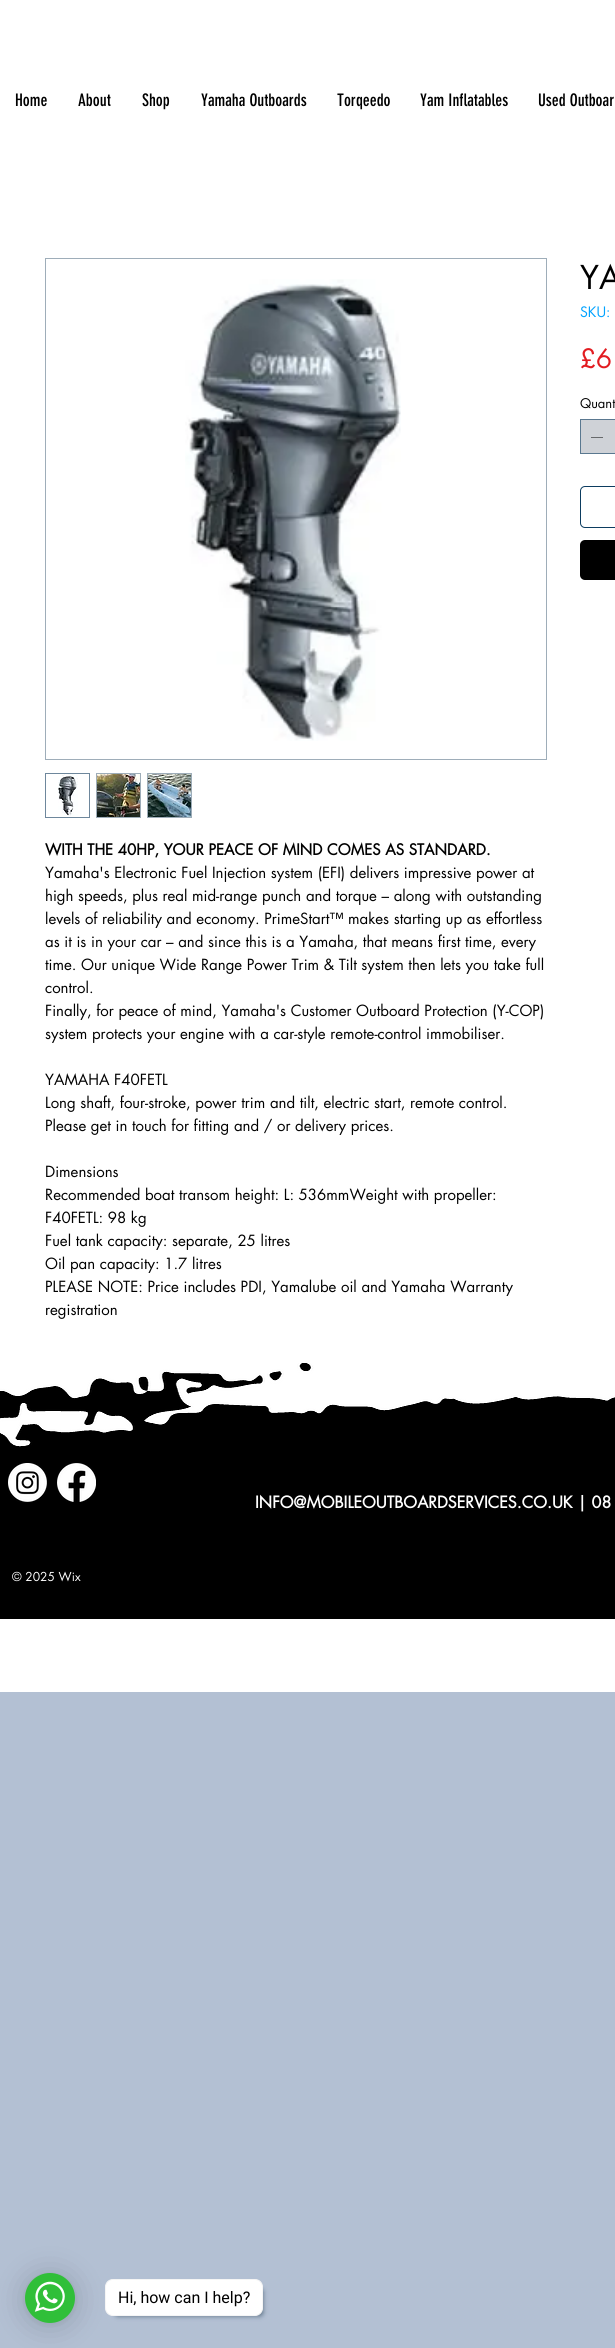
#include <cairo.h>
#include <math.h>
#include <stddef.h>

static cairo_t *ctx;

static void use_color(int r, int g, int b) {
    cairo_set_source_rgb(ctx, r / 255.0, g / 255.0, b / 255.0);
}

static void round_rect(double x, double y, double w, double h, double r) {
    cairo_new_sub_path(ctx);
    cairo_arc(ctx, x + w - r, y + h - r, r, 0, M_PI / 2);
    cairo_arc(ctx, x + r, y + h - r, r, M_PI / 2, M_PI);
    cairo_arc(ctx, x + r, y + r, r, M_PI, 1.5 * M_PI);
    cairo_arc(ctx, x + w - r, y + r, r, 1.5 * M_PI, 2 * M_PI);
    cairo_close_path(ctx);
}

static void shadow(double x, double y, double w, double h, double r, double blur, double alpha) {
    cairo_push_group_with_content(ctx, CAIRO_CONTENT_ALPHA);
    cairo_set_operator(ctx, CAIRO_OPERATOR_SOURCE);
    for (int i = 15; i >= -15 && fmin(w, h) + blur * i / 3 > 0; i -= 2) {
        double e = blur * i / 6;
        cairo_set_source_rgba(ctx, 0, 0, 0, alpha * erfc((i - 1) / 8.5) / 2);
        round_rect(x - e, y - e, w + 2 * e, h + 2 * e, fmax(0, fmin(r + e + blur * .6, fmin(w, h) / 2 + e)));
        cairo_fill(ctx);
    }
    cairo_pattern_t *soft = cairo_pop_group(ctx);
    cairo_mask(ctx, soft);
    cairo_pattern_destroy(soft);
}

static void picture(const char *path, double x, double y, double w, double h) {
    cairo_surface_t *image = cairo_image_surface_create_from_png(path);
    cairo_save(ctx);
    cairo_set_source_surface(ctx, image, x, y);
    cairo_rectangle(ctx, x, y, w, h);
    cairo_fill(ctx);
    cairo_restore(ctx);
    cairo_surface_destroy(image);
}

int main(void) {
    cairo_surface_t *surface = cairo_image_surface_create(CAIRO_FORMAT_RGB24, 615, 2348);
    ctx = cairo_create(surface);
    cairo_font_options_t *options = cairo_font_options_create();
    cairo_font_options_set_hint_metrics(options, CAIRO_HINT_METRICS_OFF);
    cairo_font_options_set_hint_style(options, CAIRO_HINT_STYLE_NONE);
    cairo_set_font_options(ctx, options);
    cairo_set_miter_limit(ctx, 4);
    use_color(179, 192, 211);
    cairo_paint(ctx);
    use_color(255, 255, 255);
    cairo_rectangle(ctx, 0, 0, 615, 1363);
    cairo_fill(ctx);
    cairo_select_font_face(ctx, "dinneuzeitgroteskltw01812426", CAIRO_FONT_SLANT_NORMAL, CAIRO_FONT_WEIGHT_NORMAL);
    cairo_set_font_size(ctx, 17);
    use_color(0, 0, 0);
    cairo_move_to(ctx, 15, 106);
    cairo_show_text(ctx, "Home");
    cairo_move_to(ctx, 78, 106);
    cairo_show_text(ctx, "About");
    cairo_move_to(ctx, 142, 106);
    cairo_show_text(ctx, "Shop");
    cairo_move_to(ctx, 201, 106);
    cairo_show_text(ctx, "Yamaha Outboards");
    cairo_move_to(ctx, 337, 106);
    cairo_show_text(ctx, "Torqeedo");
    cairo_move_to(ctx, 420, 106);
    cairo_show_text(ctx, "Yam Inflatables");
    cairo_move_to(ctx, 538, 106);
    cairo_show_text(ctx, "Used Outboar");
    cairo_select_font_face(ctx, "futura", CAIRO_FONT_SLANT_NORMAL, CAIRO_FONT_WEIGHT_NORMAL);
    cairo_set_font_size(ctx, 32);
    cairo_move_to(ctx, 580, 289);
    cairo_show_text(ctx, "YA");
    cairo_set_font_size(ctx, 14);
    use_color(0, 162, 255);
    cairo_move_to(ctx, 580, 317);
    cairo_show_text(ctx, "SKU:");
    cairo_set_font_size(ctx, 26);
    use_color(226, 28, 33);
    cairo_move_to(ctx, 580, 368);
    cairo_show_text(ctx, "£6");
    cairo_set_font_size(ctx, 13);
    use_color(0, 0, 0);
    cairo_move_to(ctx, 580, 408);
    cairo_show_text(ctx, "Quant");
    use_color(207, 210, 215);
    cairo_rectangle(ctx, 580.5, 419.5, 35, 34);
    cairo_fill_preserve(ctx);
    use_color(90, 120, 144);
    cairo_set_line_width(ctx, 1);
    cairo_stroke(ctx);
    use_color(0, 0, 0);
    cairo_set_fill_rule(ctx, CAIRO_FILL_RULE_EVEN_ODD);
    cairo_new_path(ctx);
    cairo_move_to(ctx, 603, 437);
    cairo_line_to(ctx, 603, 437.5);
    cairo_line_to(ctx, 591, 437.5);
    cairo_line_to(ctx, 591, 437);
    cairo_close_path(ctx);
    cairo_fill(ctx);
    round_rect(580.5, 486.5, 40, 41, 4.5);
    use_color(12, 60, 96);
    cairo_stroke(ctx);
    use_color(0, 0, 0);
    round_rect(580, 540, 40, 40, 5);
    cairo_fill(ctx);
    cairo_rectangle(ctx, 45.5, 258.5, 501, 501);
    use_color(158, 173, 185);
    cairo_stroke(ctx);
    picture("img1.png", 185, 279, 216, 462);
    cairo_rectangle(ctx, 45.5, 773.5, 44, 44);
    use_color(110, 135, 156);
    cairo_stroke(ctx);
    picture("img2.png", 58, 774, 20, 42);
    cairo_rectangle(ctx, 96.5, 773.5, 44, 44);
    use_color(158, 173, 185);
    cairo_stroke(ctx);
    picture("img3.png", 97, 774, 43, 43);
    cairo_rectangle(ctx, 147.5, 773.5, 44, 44);
    cairo_stroke(ctx);
    picture("img4.png", 148, 774, 43, 43);
    cairo_select_font_face(ctx, "futura", CAIRO_FONT_SLANT_NORMAL, CAIRO_FONT_WEIGHT_BOLD);
    cairo_set_font_size(ctx, 15);
    use_color(0, 0, 0);
    cairo_move_to(ctx, 45, 855);
    cairo_show_text(ctx, "WITH THE 40HP, YOUR PEACE OF MIND COMES AS STANDARD.");
    cairo_select_font_face(ctx, "futura", CAIRO_FONT_SLANT_NORMAL, CAIRO_FONT_WEIGHT_NORMAL);
    cairo_move_to(ctx, 45, 878);
    cairo_show_text(ctx, "Yamaha's Electronic Fuel Injection system (EFI) delivers impressive power at");
    cairo_move_to(ctx, 45, 901);
    cairo_show_text(ctx, "high speeds, plus real mid-range punch and torque – along with outstanding");
    cairo_move_to(ctx, 45, 924);
    cairo_show_text(ctx, "levels of reliability and economy. PrimeStart™ makes starting up as effortless");
    cairo_move_to(ctx, 45, 947);
    cairo_show_text(ctx, "as it is in your car – and since this is a Yamaha, that means first time, every");
    cairo_move_to(ctx, 45, 970);
    cairo_show_text(ctx, "time. Our unique Wide Range Power Trim & Tilt system then lets you take full");
    cairo_move_to(ctx, 45, 993);
    cairo_show_text(ctx, "control.");
    cairo_move_to(ctx, 45, 1016);
    cairo_show_text(ctx, "Finally, for peace of mind, Yamaha's Customer Outboard Protection (Y-COP)");
    cairo_move_to(ctx, 45, 1039);
    cairo_show_text(ctx, "system protects your engine with a car-style remote-control immobiliser.");
    cairo_move_to(ctx, 45, 1085);
    cairo_show_text(ctx, "YAMAHA F40FETL");
    cairo_move_to(ctx, 45, 1108);
    cairo_show_text(ctx, "Long shaft, four-stroke, power trim and tilt, electric start, remote control.");
    cairo_move_to(ctx, 45, 1131);
    cairo_show_text(ctx, "Please get in touch for fitting and / or delivery prices.");
    cairo_move_to(ctx, 45, 1177);
    cairo_show_text(ctx, "Dimensions");
    cairo_move_to(ctx, 45, 1200);
    cairo_show_text(ctx, "Recommended boat transom height: L: 536mmWeight with propeller:");
    cairo_move_to(ctx, 45, 1223);
    cairo_show_text(ctx, "F40FETL: 98 kg");
    cairo_move_to(ctx, 45, 1246);
    cairo_show_text(ctx, "Fuel tank capacity: separate, 25 litres");
    cairo_move_to(ctx, 45, 1269);
    cairo_show_text(ctx, "Oil pan capacity: 1.7 litres");
    cairo_move_to(ctx, 45, 1292);
    cairo_show_text(ctx, "PLEASE NOTE: Price includes PDI, Yamalube oil and Yamaha Warranty");
    cairo_move_to(ctx, 45, 1315);
    cairo_show_text(ctx, "registration");
    picture("img5.png", 0, 1363, 615, 256);
    picture("img6.png", 8, 1463, 39, 39);
    picture("img7.png", 57, 1463, 39, 39);
    cairo_select_font_face(ctx, "futura", CAIRO_FONT_SLANT_NORMAL, CAIRO_FONT_WEIGHT_BOLD);
    cairo_set_font_size(ctx, 16);
    use_color(255, 255, 255);
    cairo_move_to(ctx, 255, 1508);
    cairo_show_text(ctx, "INFO@MOBILEOUTBOARDSERVICES.CO.UK | 08");
    cairo_select_font_face(ctx, "futura", CAIRO_FONT_SLANT_NORMAL, CAIRO_FONT_WEIGHT_NORMAL);
    cairo_set_font_size(ctx, 12);
    cairo_move_to(ctx, 12, 1581);
    cairo_show_text(ctx, "© 2025 Wix");
    cairo_rectangle(ctx, 0, 1619, 615, 73);
    cairo_fill(ctx);
    use_color(0, 0, 0);
    shadow(25, 2275, 50, 50, 25, 16, 0.16);
    shadow(25, 2274, 50, 50, 25, 3, 0.06);
    picture("img8.png", 25, 2273, 50, 50);
    use_color(34, 60, 80);
    shadow(115, 2289, 148, 27, 3, 2.5, 0.6);
    use_color(255, 255, 255);
    round_rect(105.5, 2279.5, 157, 36, 7.5);
    cairo_fill_preserve(ctx);
    use_color(245, 245, 245);
    cairo_stroke(ctx);
    cairo_select_font_face(ctx, "Roboto", CAIRO_FONT_SLANT_NORMAL, CAIRO_FONT_WEIGHT_NORMAL);
    cairo_set_font_size(ctx, 16);
    use_color(0, 0, 0);
    cairo_move_to(ctx, 118, 2303);
    cairo_show_text(ctx, "Hi, how can I help?");
    cairo_surface_write_to_png(surface, "result.png");
    cairo_font_options_destroy(options);
    cairo_destroy(ctx);
    cairo_surface_destroy(surface);
    return 0;
}
